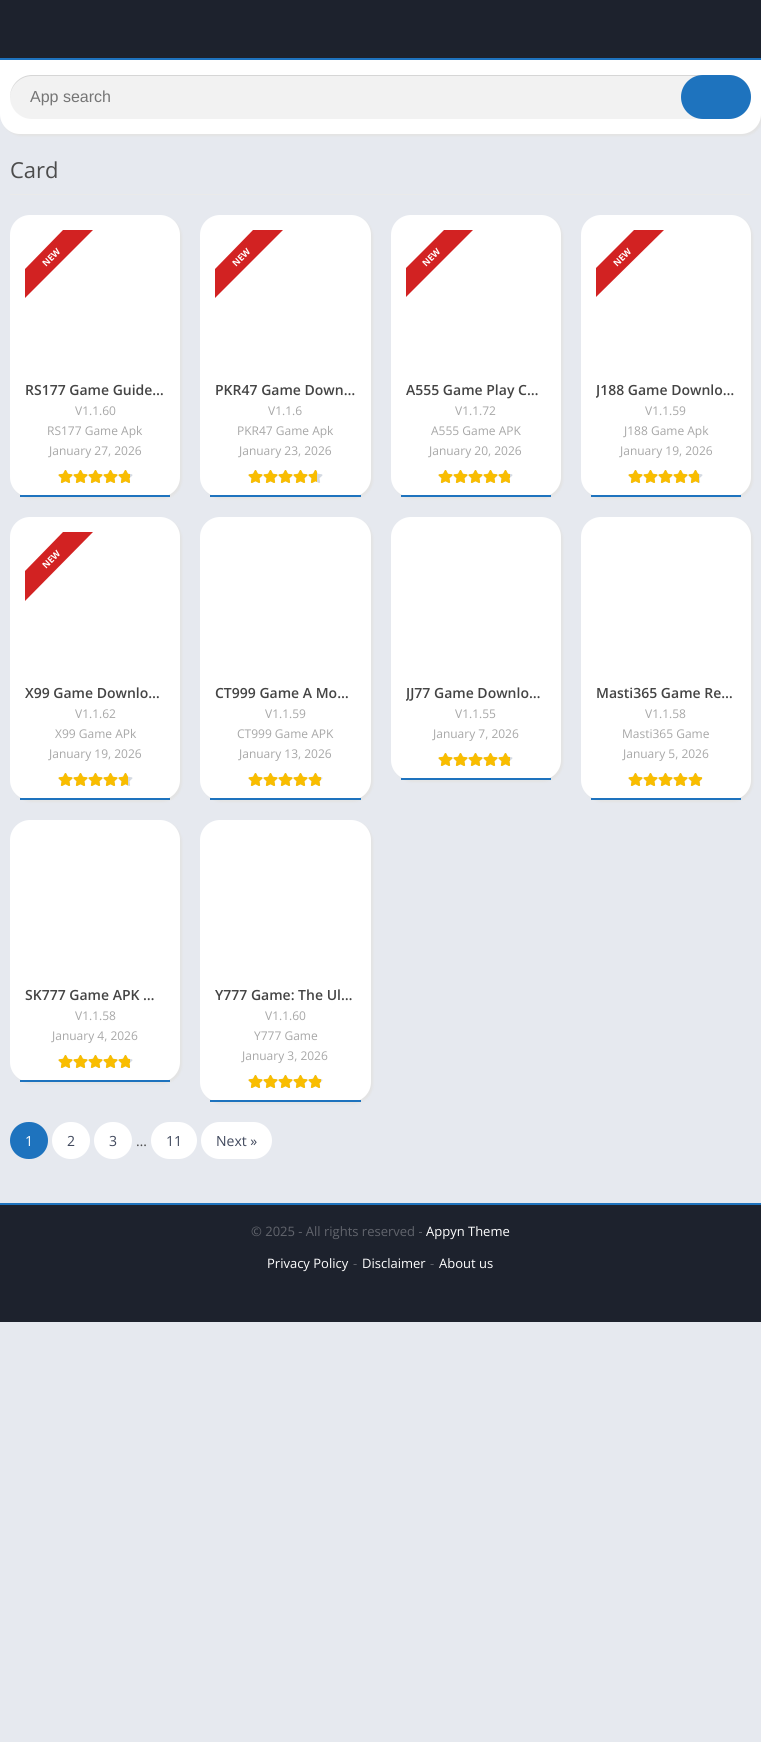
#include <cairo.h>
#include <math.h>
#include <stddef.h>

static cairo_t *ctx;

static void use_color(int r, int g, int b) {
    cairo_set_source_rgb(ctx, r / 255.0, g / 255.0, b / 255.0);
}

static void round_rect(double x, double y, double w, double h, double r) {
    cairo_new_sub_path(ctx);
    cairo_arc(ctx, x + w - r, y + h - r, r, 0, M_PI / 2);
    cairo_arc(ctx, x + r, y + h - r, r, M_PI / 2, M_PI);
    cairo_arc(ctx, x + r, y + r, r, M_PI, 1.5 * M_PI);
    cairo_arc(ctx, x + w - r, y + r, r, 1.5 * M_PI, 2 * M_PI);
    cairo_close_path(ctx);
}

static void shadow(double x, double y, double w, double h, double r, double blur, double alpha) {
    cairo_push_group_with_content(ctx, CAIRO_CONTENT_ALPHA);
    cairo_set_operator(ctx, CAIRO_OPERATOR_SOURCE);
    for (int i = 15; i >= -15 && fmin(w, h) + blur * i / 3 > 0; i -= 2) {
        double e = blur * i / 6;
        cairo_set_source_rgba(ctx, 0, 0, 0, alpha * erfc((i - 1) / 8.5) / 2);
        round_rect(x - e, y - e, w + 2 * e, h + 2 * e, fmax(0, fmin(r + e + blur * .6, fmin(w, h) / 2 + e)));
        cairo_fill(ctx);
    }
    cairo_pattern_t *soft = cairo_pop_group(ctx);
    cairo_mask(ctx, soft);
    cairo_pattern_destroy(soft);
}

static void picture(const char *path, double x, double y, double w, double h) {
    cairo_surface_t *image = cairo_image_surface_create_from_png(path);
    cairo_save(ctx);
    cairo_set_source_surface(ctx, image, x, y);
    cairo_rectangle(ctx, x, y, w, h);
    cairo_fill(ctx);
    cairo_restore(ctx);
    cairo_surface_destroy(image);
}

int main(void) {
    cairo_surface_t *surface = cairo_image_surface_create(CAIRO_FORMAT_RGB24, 761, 1742);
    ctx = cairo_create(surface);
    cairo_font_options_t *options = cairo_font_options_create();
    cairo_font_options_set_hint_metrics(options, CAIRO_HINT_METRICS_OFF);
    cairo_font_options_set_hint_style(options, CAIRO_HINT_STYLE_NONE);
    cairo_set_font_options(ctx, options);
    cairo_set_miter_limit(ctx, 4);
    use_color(230, 233, 239);
    cairo_paint(ctx);
    use_color(227, 227, 227);
    shadow(2, 2, 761, 134, 20, 1, 1);
    use_color(255, 255, 255);
    cairo_new_path(ctx);
    cairo_move_to(ctx, 0, 0);
    cairo_line_to(ctx, 761, 0);
    cairo_line_to(ctx, 761, 114);
    cairo_curve_to(ctx, 761, 125, 752, 134, 741, 134);
    cairo_line_to(ctx, 20, 134);
    cairo_curve_to(ctx, 9, 134, 0, 125, 0, 114);
    cairo_close_path(ctx);
    cairo_fill(ctx);
    use_color(29, 34, 45);
    cairo_rectangle(ctx, 0, 0, 761, 58);
    cairo_fill(ctx);
    use_color(30, 115, 190);
    cairo_rectangle(ctx, 0, 58, 761, 2);
    cairo_fill(ctx);
    use_color(242, 242, 242);
    round_rect(10, 75, 741, 44, 22);
    cairo_fill(ctx);
    cairo_set_source_rgba(ctx, 0, 0, 0, 0.12);
    cairo_new_path(ctx);
    cairo_move_to(ctx, 32, 76);
    cairo_line_to(ctx, 729, 76);
    cairo_curve_to(ctx, 741, 76, 751, 86, 751, 98);
    cairo_line_to(ctx, 751, 97);
    cairo_curve_to(ctx, 751, 85, 741, 75, 729, 75);
    cairo_line_to(ctx, 32, 75);
    cairo_curve_to(ctx, 20, 75, 10, 85, 10, 97);
    cairo_line_to(ctx, 10, 98);
    cairo_curve_to(ctx, 10, 86, 20, 76, 32, 76);
    cairo_close_path(ctx);
    cairo_fill(ctx);
    cairo_select_font_face(ctx, "Liberation Sans", CAIRO_FONT_SLANT_NORMAL, CAIRO_FONT_WEIGHT_NORMAL);
    cairo_set_font_size(ctx, 16);
    use_color(117, 117, 117);
    cairo_move_to(ctx, 30, 102);
    cairo_show_text(ctx, "App search");
    use_color(30, 115, 190);
    round_rect(681, 75, 70, 44, 22);
    cairo_fill(ctx);
    use_color(234, 234, 234);
    cairo_rectangle(ctx, 10, 194, 741, 1);
    cairo_fill(ctx);
    cairo_select_font_face(ctx, "Open Sans", CAIRO_FONT_SLANT_NORMAL, CAIRO_FONT_WEIGHT_NORMAL);
    cairo_set_font_size(ctx, 22);
    use_color(76, 76, 76);
    cairo_move_to(ctx, 10, 178);
    cairo_show_text(ctx, "Card");
    use_color(227, 227, 227);
    shadow(12, 217, 170, 282, 20, 1, 1);
    use_color(255, 255, 255);
    round_rect(10, 215, 170, 282, 20);
    cairo_fill(ctx);
    use_color(30, 115, 190);
    cairo_rectangle(ctx, 20, 495, 150, 2);
    cairo_fill(ctx);
    use_color(210, 34, 34);
    cairo_new_path(ctx);
    cairo_move_to(ctx, 93, 230);
    cairo_line_to(ctx, 25, 298);
    cairo_line_to(ctx, 25, 269);
    cairo_line_to(ctx, 63, 230);
    cairo_close_path(ctx);
    cairo_fill(ctx);
    cairo_select_font_face(ctx, "Open Sans", CAIRO_FONT_SLANT_NORMAL, CAIRO_FONT_WEIGHT_BOLD);
    cairo_set_font_size(ctx, 9);
    use_color(255, 255, 255);
    cairo_save(ctx);
    cairo_translate(ctx, 46, 267);
    cairo_rotate(ctx, -45 * M_PI / 180);
    cairo_move_to(ctx, 0, 0);
    cairo_show_text(ctx, "NEW");
    cairo_restore(ctx);
    cairo_select_font_face(ctx, "Open Sans SemiBold", CAIRO_FONT_SLANT_NORMAL, CAIRO_FONT_WEIGHT_NORMAL);
    cairo_set_font_size(ctx, 14);
    use_color(68, 68, 68);
    cairo_move_to(ctx, 25, 395);
    cairo_show_text(ctx, "RS177 Game Guide…");
    cairo_select_font_face(ctx, "Open Sans", CAIRO_FONT_SLANT_NORMAL, CAIRO_FONT_WEIGHT_NORMAL);
    cairo_set_font_size(ctx, 12);
    use_color(167, 167, 167);
    cairo_move_to(ctx, 75, 415);
    cairo_show_text(ctx, "V1.1.60");
    cairo_move_to(ctx, 47, 435);
    cairo_show_text(ctx, "RS177 Game Apk");
    cairo_move_to(ctx, 49, 455);
    cairo_show_text(ctx, "January 27, 2026");
    picture("img1.png", 58, 470, 75, 13);
    picture("img2.png", 58, 470, 72, 13);
    use_color(227, 227, 227);
    shadow(202, 217, 171, 282, 20, 1, 1);
    use_color(255, 255, 255);
    round_rect(200, 215, 171, 282, 20);
    cairo_fill(ctx);
    use_color(30, 115, 190);
    cairo_rectangle(ctx, 210, 495, 151, 2);
    cairo_fill(ctx);
    use_color(210, 34, 34);
    cairo_new_path(ctx);
    cairo_move_to(ctx, 283, 230);
    cairo_line_to(ctx, 215, 298);
    cairo_line_to(ctx, 215, 269);
    cairo_line_to(ctx, 253, 230);
    cairo_close_path(ctx);
    cairo_fill(ctx);
    cairo_select_font_face(ctx, "Open Sans", CAIRO_FONT_SLANT_NORMAL, CAIRO_FONT_WEIGHT_BOLD);
    cairo_set_font_size(ctx, 9);
    use_color(255, 255, 255);
    cairo_save(ctx);
    cairo_translate(ctx, 236, 267);
    cairo_rotate(ctx, -45 * M_PI / 180);
    cairo_move_to(ctx, 0, 0);
    cairo_show_text(ctx, "NEW");
    cairo_restore(ctx);
    cairo_select_font_face(ctx, "Open Sans SemiBold", CAIRO_FONT_SLANT_NORMAL, CAIRO_FONT_WEIGHT_NORMAL);
    cairo_set_font_size(ctx, 14);
    use_color(68, 68, 68);
    cairo_move_to(ctx, 215, 395);
    cairo_show_text(ctx, "PKR47 Game Down…");
    cairo_select_font_face(ctx, "Open Sans", CAIRO_FONT_SLANT_NORMAL, CAIRO_FONT_WEIGHT_NORMAL);
    cairo_set_font_size(ctx, 12);
    use_color(167, 167, 167);
    cairo_move_to(ctx, 268, 415);
    cairo_show_text(ctx, "V1.1.6");
    cairo_move_to(ctx, 237, 435);
    cairo_show_text(ctx, "PKR47 Game Apk");
    cairo_move_to(ctx, 239, 455);
    cairo_show_text(ctx, "January 23, 2026");
    picture("img1.png", 248, 470, 75, 13);
    picture("img3.png", 248, 470, 69, 13);
    use_color(227, 227, 227);
    shadow(393, 217, 170, 282, 20, 1, 1);
    use_color(255, 255, 255);
    round_rect(391, 215, 170, 282, 20);
    cairo_fill(ctx);
    use_color(30, 115, 190);
    cairo_rectangle(ctx, 401, 495, 150, 2);
    cairo_fill(ctx);
    use_color(210, 34, 34);
    cairo_new_path(ctx);
    cairo_move_to(ctx, 473, 230);
    cairo_line_to(ctx, 406, 297);
    cairo_line_to(ctx, 406, 268);
    cairo_line_to(ctx, 444, 230);
    cairo_close_path(ctx);
    cairo_fill(ctx);
    cairo_select_font_face(ctx, "Open Sans", CAIRO_FONT_SLANT_NORMAL, CAIRO_FONT_WEIGHT_BOLD);
    cairo_set_font_size(ctx, 9);
    use_color(255, 255, 255);
    cairo_save(ctx);
    cairo_translate(ctx, 426, 267);
    cairo_rotate(ctx, -45 * M_PI / 180);
    cairo_move_to(ctx, 0, 0);
    cairo_show_text(ctx, "NEW");
    cairo_restore(ctx);
    cairo_select_font_face(ctx, "Open Sans SemiBold", CAIRO_FONT_SLANT_NORMAL, CAIRO_FONT_WEIGHT_NORMAL);
    cairo_set_font_size(ctx, 14);
    use_color(68, 68, 68);
    cairo_move_to(ctx, 406, 395);
    cairo_show_text(ctx, "A555 Game Play C…");
    cairo_select_font_face(ctx, "Open Sans", CAIRO_FONT_SLANT_NORMAL, CAIRO_FONT_WEIGHT_NORMAL);
    cairo_set_font_size(ctx, 12);
    use_color(167, 167, 167);
    cairo_move_to(ctx, 455, 415);
    cairo_show_text(ctx, "V1.1.72");
    cairo_move_to(ctx, 431, 435);
    cairo_show_text(ctx, "A555 Game APK");
    cairo_move_to(ctx, 429, 455);
    cairo_show_text(ctx, "January 20, 2026");
    picture("img1.png", 438, 470, 75, 13);
    picture("img2.png", 438, 470, 72, 13);
    use_color(227, 227, 227);
    shadow(583, 217, 170, 282, 20, 1, 1);
    use_color(255, 255, 255);
    round_rect(581, 215, 170, 282, 20);
    cairo_fill(ctx);
    use_color(30, 115, 190);
    cairo_rectangle(ctx, 591, 495, 150, 2);
    cairo_fill(ctx);
    use_color(210, 34, 34);
    cairo_new_path(ctx);
    cairo_move_to(ctx, 664, 230);
    cairo_line_to(ctx, 596, 297);
    cairo_line_to(ctx, 596, 268);
    cairo_line_to(ctx, 634, 230);
    cairo_close_path(ctx);
    cairo_fill(ctx);
    cairo_select_font_face(ctx, "Open Sans", CAIRO_FONT_SLANT_NORMAL, CAIRO_FONT_WEIGHT_BOLD);
    cairo_set_font_size(ctx, 9);
    use_color(255, 255, 255);
    cairo_save(ctx);
    cairo_translate(ctx, 617, 267);
    cairo_rotate(ctx, -45 * M_PI / 180);
    cairo_move_to(ctx, 0, 0);
    cairo_show_text(ctx, "NEW");
    cairo_restore(ctx);
    cairo_save(ctx);
    cairo_rectangle(ctx, 596, 380, 140, 20);
    cairo_clip(ctx);
    cairo_select_font_face(ctx, "Open Sans SemiBold", CAIRO_FONT_SLANT_NORMAL, CAIRO_FONT_WEIGHT_NORMAL);
    cairo_set_font_size(ctx, 14);
    use_color(68, 68, 68);
    cairo_move_to(ctx, 596, 395);
    cairo_show_text(ctx, "J188 Game Downlo…");
    cairo_restore(ctx);
    cairo_select_font_face(ctx, "Open Sans", CAIRO_FONT_SLANT_NORMAL, CAIRO_FONT_WEIGHT_NORMAL);
    cairo_set_font_size(ctx, 12);
    use_color(167, 167, 167);
    cairo_move_to(ctx, 645, 415);
    cairo_show_text(ctx, "V1.1.59");
    cairo_move_to(ctx, 624, 435);
    cairo_show_text(ctx, "J188 Game Apk");
    cairo_move_to(ctx, 620, 455);
    cairo_show_text(ctx, "January 19, 2026");
    picture("img1.png", 628, 470, 75, 13);
    picture("img4.png", 628, 470, 71, 13);
    use_color(227, 227, 227);
    shadow(12, 519, 170, 283, 20, 1, 1);
    use_color(255, 255, 255);
    round_rect(10, 517, 170, 283, 20);
    cairo_fill(ctx);
    use_color(30, 115, 190);
    cairo_rectangle(ctx, 20, 798, 150, 2);
    cairo_fill(ctx);
    use_color(210, 34, 34);
    cairo_new_path(ctx);
    cairo_move_to(ctx, 93, 532);
    cairo_line_to(ctx, 25, 601);
    cairo_line_to(ctx, 25, 571);
    cairo_line_to(ctx, 63, 532);
    cairo_close_path(ctx);
    cairo_fill(ctx);
    cairo_select_font_face(ctx, "Open Sans", CAIRO_FONT_SLANT_NORMAL, CAIRO_FONT_WEIGHT_BOLD);
    cairo_set_font_size(ctx, 9);
    use_color(255, 255, 255);
    cairo_save(ctx);
    cairo_translate(ctx, 46, 569);
    cairo_rotate(ctx, -45 * M_PI / 180);
    cairo_move_to(ctx, 0, 0);
    cairo_show_text(ctx, "NEW");
    cairo_restore(ctx);
    cairo_select_font_face(ctx, "Open Sans SemiBold", CAIRO_FONT_SLANT_NORMAL, CAIRO_FONT_WEIGHT_NORMAL);
    cairo_set_font_size(ctx, 14);
    use_color(68, 68, 68);
    cairo_move_to(ctx, 25, 698);
    cairo_show_text(ctx, "X99 Game Downlo…");
    cairo_select_font_face(ctx, "Open Sans", CAIRO_FONT_SLANT_NORMAL, CAIRO_FONT_WEIGHT_NORMAL);
    cairo_set_font_size(ctx, 12);
    use_color(167, 167, 167);
    cairo_move_to(ctx, 75, 718);
    cairo_show_text(ctx, "V1.1.62");
    cairo_move_to(ctx, 55, 738);
    cairo_show_text(ctx, "X99 Game APk");
    cairo_move_to(ctx, 49, 758);
    cairo_show_text(ctx, "January 19, 2026");
    picture("img1.png", 58, 773, 75, 13);
    picture("img5.png", 58, 773, 70, 13);
    use_color(227, 227, 227);
    shadow(202, 519, 171, 283, 20, 1, 1);
    use_color(255, 255, 255);
    round_rect(200, 517, 171, 283, 20);
    cairo_fill(ctx);
    use_color(30, 115, 190);
    cairo_rectangle(ctx, 210, 798, 151, 2);
    cairo_fill(ctx);
    cairo_select_font_face(ctx, "Open Sans SemiBold", CAIRO_FONT_SLANT_NORMAL, CAIRO_FONT_WEIGHT_NORMAL);
    cairo_set_font_size(ctx, 14);
    use_color(68, 68, 68);
    cairo_move_to(ctx, 215, 698);
    cairo_show_text(ctx, "CT999 Game A Mo…");
    cairo_select_font_face(ctx, "Open Sans", CAIRO_FONT_SLANT_NORMAL, CAIRO_FONT_WEIGHT_NORMAL);
    cairo_set_font_size(ctx, 12);
    use_color(167, 167, 167);
    cairo_move_to(ctx, 265, 718);
    cairo_show_text(ctx, "V1.1.59");
    cairo_move_to(ctx, 237, 738);
    cairo_show_text(ctx, "CT999 Game APK");
    cairo_move_to(ctx, 239, 758);
    cairo_show_text(ctx, "January 13, 2026");
    picture("img1.png", 248, 773, 75, 13);
    picture("img6.png", 248, 773, 73, 13);
    use_color(227, 227, 227);
    shadow(393, 519, 170, 263, 20, 1, 1);
    use_color(255, 255, 255);
    round_rect(391, 517, 170, 263, 20);
    cairo_fill(ctx);
    use_color(30, 115, 190);
    cairo_rectangle(ctx, 401, 778, 150, 2);
    cairo_fill(ctx);
    cairo_save(ctx);
    cairo_rectangle(ctx, 406, 683, 140, 20);
    cairo_clip(ctx);
    cairo_select_font_face(ctx, "Open Sans SemiBold", CAIRO_FONT_SLANT_NORMAL, CAIRO_FONT_WEIGHT_NORMAL);
    cairo_set_font_size(ctx, 14);
    use_color(68, 68, 68);
    cairo_move_to(ctx, 406, 698);
    cairo_show_text(ctx, "JJ77 Game Downlo…");
    cairo_restore(ctx);
    use_color(167, 167, 167);
    cairo_move_to(ctx, 455, 718);
    cairo_show_text(ctx, "V1.1.55");
    cairo_move_to(ctx, 433, 738);
    cairo_show_text(ctx, "January 7, 2026");
    picture("img1.png", 438, 753, 75, 13);
    picture("img2.png", 438, 753, 72, 13);
    use_color(227, 227, 227);
    shadow(583, 519, 170, 283, 20, 1, 1);
    use_color(255, 255, 255);
    round_rect(581, 517, 170, 283, 20);
    cairo_fill(ctx);
    use_color(30, 115, 190);
    cairo_rectangle(ctx, 591, 798, 150, 2);
    cairo_fill(ctx);
    cairo_select_font_face(ctx, "Open Sans SemiBold", CAIRO_FONT_SLANT_NORMAL, CAIRO_FONT_WEIGHT_NORMAL);
    cairo_set_font_size(ctx, 14);
    use_color(68, 68, 68);
    cairo_move_to(ctx, 596, 698);
    cairo_show_text(ctx, "Masti365 Game Re…");
    cairo_select_font_face(ctx, "Open Sans", CAIRO_FONT_SLANT_NORMAL, CAIRO_FONT_WEIGHT_NORMAL);
    cairo_set_font_size(ctx, 12);
    use_color(167, 167, 167);
    cairo_move_to(ctx, 645, 718);
    cairo_show_text(ctx, "V1.1.58");
    cairo_move_to(ctx, 622, 738);
    cairo_show_text(ctx, "Masti365 Game");
    cairo_move_to(ctx, 623, 758);
    cairo_show_text(ctx, "January 5, 2026");
    picture("img1.png", 628, 773, 75, 13);
    picture("img7.png", 628, 773, 74, 13);
    use_color(227, 227, 227);
    shadow(12, 822, 170, 262, 20, 1, 1);
    use_color(255, 255, 255);
    round_rect(10, 820, 170, 262, 20);
    cairo_fill(ctx);
    use_color(30, 115, 190);
    cairo_rectangle(ctx, 20, 1080, 150, 2);
    cairo_fill(ctx);
    cairo_select_font_face(ctx, "Open Sans SemiBold", CAIRO_FONT_SLANT_NORMAL, CAIRO_FONT_WEIGHT_NORMAL);
    cairo_set_font_size(ctx, 14);
    use_color(68, 68, 68);
    cairo_move_to(ctx, 25, 1000);
    cairo_show_text(ctx, "SK777 Game APK …");
    cairo_select_font_face(ctx, "Open Sans", CAIRO_FONT_SLANT_NORMAL, CAIRO_FONT_WEIGHT_NORMAL);
    cairo_set_font_size(ctx, 12);
    use_color(167, 167, 167);
    cairo_move_to(ctx, 75, 1020);
    cairo_show_text(ctx, "V1.1.58");
    cairo_move_to(ctx, 52, 1040);
    cairo_show_text(ctx, "January 4, 2026");
    picture("img1.png", 58, 1055, 75, 13);
    picture("img2.png", 58, 1055, 72, 13);
    use_color(227, 227, 227);
    shadow(202, 822, 171, 282, 20, 1, 1);
    use_color(255, 255, 255);
    round_rect(200, 820, 171, 282, 20);
    cairo_fill(ctx);
    use_color(30, 115, 190);
    cairo_rectangle(ctx, 210, 1100, 151, 2);
    cairo_fill(ctx);
    cairo_select_font_face(ctx, "Open Sans SemiBold", CAIRO_FONT_SLANT_NORMAL, CAIRO_FONT_WEIGHT_NORMAL);
    cairo_set_font_size(ctx, 14);
    use_color(68, 68, 68);
    cairo_move_to(ctx, 215, 1000);
    cairo_show_text(ctx, "Y777 Game: The Ul…");
    cairo_select_font_face(ctx, "Open Sans", CAIRO_FONT_SLANT_NORMAL, CAIRO_FONT_WEIGHT_NORMAL);
    cairo_set_font_size(ctx, 12);
    use_color(167, 167, 167);
    cairo_move_to(ctx, 265, 1020);
    cairo_show_text(ctx, "V1.1.60");
    cairo_move_to(ctx, 254, 1040);
    cairo_show_text(ctx, "Y777 Game");
    cairo_move_to(ctx, 242, 1060);
    cairo_show_text(ctx, "January 3, 2026");
    picture("img1.png", 248, 1075, 75, 13);
    picture("img6.png", 248, 1075, 73, 13);
    use_color(30, 115, 190);
    round_rect(10, 1122, 38, 37, 18.5);
    cairo_fill(ctx);
    cairo_set_font_size(ctx, 14);
    use_color(255, 255, 255);
    cairo_move_to(ctx, 25, 1146);
    cairo_show_text(ctx, "1");
    round_rect(52, 1122, 38, 37, 18.5);
    cairo_fill(ctx);
    use_color(65, 73, 93);
    cairo_move_to(ctx, 67, 1146);
    cairo_show_text(ctx, "2");
    use_color(255, 255, 255);
    round_rect(94, 1122, 38, 37, 18.5);
    cairo_fill(ctx);
    use_color(65, 73, 93);
    cairo_move_to(ctx, 109, 1146);
    cairo_show_text(ctx, "3");
    use_color(76, 76, 76);
    cairo_move_to(ctx, 136, 1146);
    cairo_show_text(ctx, "…");
    use_color(255, 255, 255);
    round_rect(151, 1122, 46, 37, 18.5);
    cairo_fill(ctx);
    use_color(65, 73, 93);
    cairo_move_to(ctx, 166, 1146);
    cairo_show_text(ctx, "11");
    use_color(255, 255, 255);
    round_rect(201, 1122, 71, 37, 18.5);
    cairo_fill(ctx);
    use_color(65, 73, 93);
    cairo_move_to(ctx, 216, 1146);
    cairo_show_text(ctx, "Next »");
    use_color(29, 34, 45);
    cairo_rectangle(ctx, 0, 1205, 761, 117);
    cairo_fill(ctx);
    use_color(30, 115, 190);
    cairo_rectangle(ctx, 0, 1203, 761, 2);
    cairo_fill(ctx);
    cairo_set_font_size(ctx, 13);
    use_color(97, 100, 108);
    cairo_move_to(ctx, 251, 1236);
    cairo_show_text(ctx, "© 2025 - All rights reserved -");
    use_color(255, 255, 255);
    cairo_move_to(ctx, 426, 1236);
    cairo_show_text(ctx, "Appyn Theme");
    cairo_move_to(ctx, 267, 1268);
    cairo_show_text(ctx, "Privacy Policy");
    use_color(97, 100, 108);
    cairo_move_to(ctx, 353, 1268);
    cairo_show_text(ctx, "-");
    use_color(255, 255, 255);
    cairo_move_to(ctx, 362, 1268);
    cairo_show_text(ctx, "Disclaimer");
    use_color(97, 100, 108);
    cairo_move_to(ctx, 430, 1268);
    cairo_show_text(ctx, "-");
    use_color(255, 255, 255);
    cairo_move_to(ctx, 439, 1268);
    cairo_show_text(ctx, "About us");
    cairo_surface_write_to_png(surface, "result.png");
    cairo_font_options_destroy(options);
    cairo_destroy(ctx);
    cairo_surface_destroy(surface);
    return 0;
}
